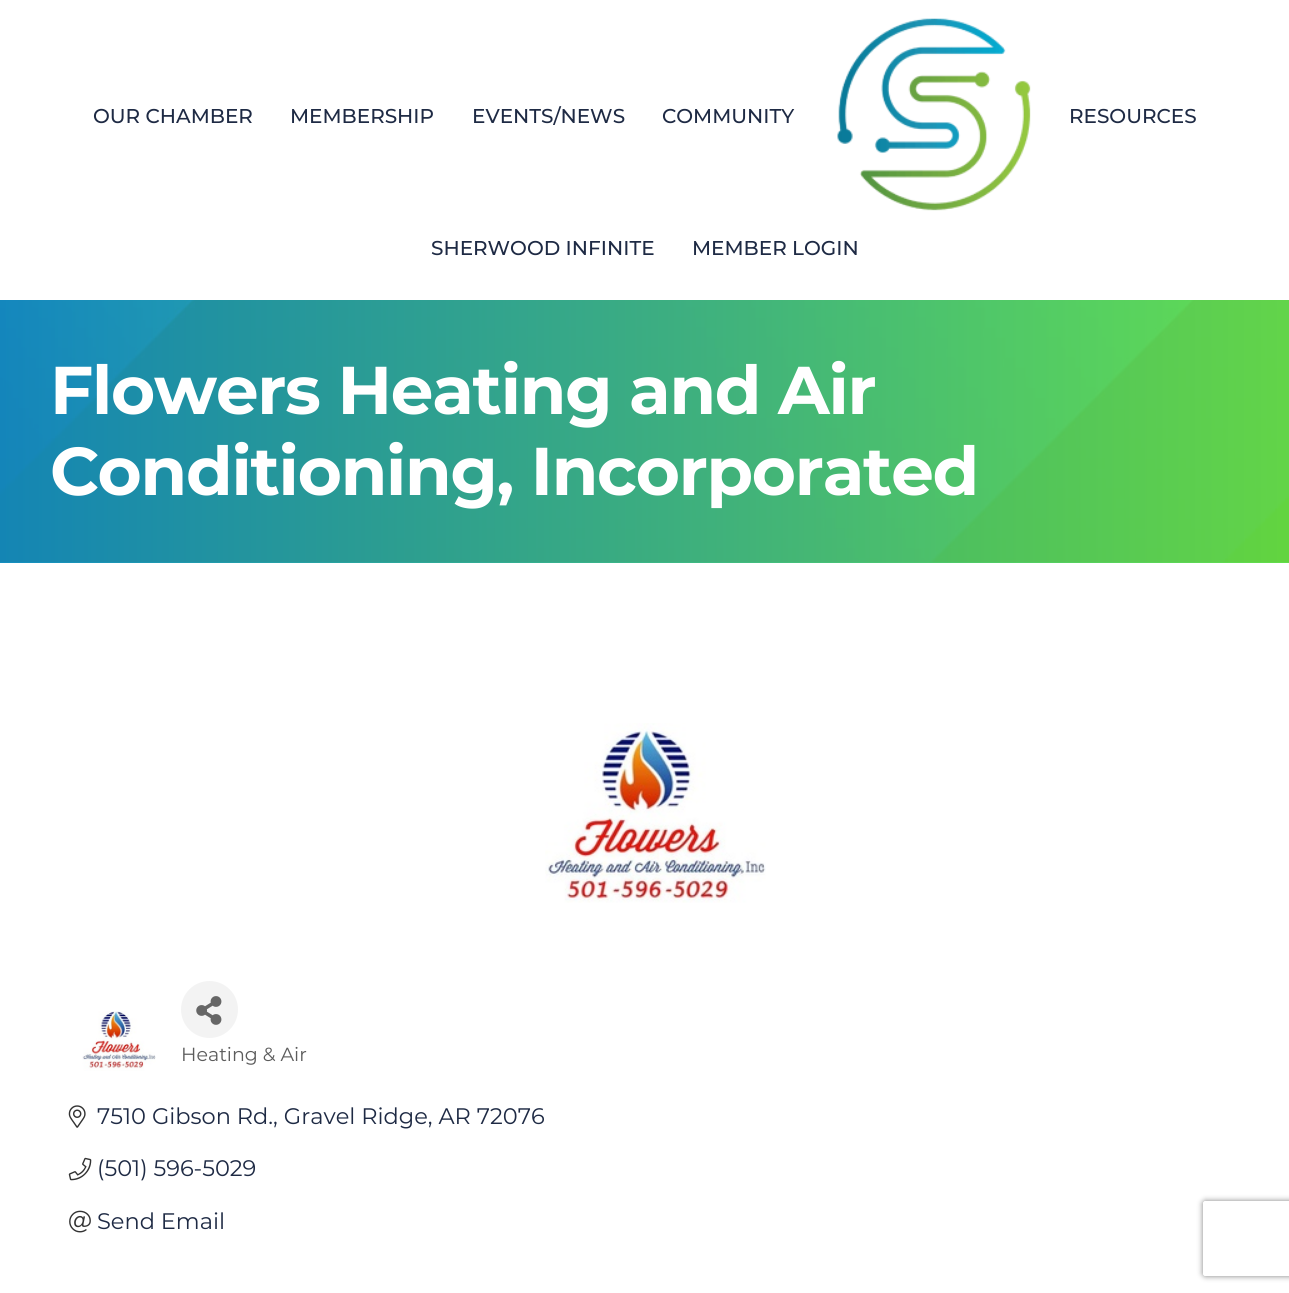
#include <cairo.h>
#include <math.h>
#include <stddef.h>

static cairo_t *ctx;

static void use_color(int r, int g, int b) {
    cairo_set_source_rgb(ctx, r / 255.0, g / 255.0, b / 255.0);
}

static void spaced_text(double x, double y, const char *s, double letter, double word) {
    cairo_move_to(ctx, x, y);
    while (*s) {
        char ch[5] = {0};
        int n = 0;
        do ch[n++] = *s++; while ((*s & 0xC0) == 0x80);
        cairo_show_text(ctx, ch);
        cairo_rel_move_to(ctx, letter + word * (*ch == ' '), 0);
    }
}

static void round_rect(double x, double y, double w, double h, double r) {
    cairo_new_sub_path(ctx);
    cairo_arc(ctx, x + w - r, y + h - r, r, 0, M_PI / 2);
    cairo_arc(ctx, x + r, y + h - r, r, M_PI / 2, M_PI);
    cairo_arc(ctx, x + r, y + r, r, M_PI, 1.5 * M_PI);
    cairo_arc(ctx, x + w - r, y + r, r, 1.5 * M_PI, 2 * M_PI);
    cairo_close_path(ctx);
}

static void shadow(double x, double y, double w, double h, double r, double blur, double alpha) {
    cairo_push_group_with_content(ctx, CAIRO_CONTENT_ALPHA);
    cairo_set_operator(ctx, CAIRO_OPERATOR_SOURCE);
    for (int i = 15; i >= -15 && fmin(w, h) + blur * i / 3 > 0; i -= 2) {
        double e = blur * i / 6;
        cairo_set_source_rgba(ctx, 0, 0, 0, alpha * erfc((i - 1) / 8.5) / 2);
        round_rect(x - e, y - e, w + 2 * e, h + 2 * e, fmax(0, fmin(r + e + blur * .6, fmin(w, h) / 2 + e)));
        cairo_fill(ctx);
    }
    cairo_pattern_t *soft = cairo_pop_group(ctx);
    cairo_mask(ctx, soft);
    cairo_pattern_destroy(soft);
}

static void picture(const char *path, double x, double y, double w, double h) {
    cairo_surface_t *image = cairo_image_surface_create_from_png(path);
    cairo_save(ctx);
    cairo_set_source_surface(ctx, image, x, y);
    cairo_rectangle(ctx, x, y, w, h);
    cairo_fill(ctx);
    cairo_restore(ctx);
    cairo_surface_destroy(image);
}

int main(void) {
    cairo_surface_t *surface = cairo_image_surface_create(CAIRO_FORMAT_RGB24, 1289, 1293);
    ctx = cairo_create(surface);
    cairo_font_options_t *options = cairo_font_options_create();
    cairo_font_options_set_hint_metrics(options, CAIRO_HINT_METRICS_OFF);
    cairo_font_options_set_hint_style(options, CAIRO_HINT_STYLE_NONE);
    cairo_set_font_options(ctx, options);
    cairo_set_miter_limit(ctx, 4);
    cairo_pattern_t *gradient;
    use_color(255, 255, 255);
    cairo_paint(ctx);
    cairo_select_font_face(ctx, "Montserrat Medium", CAIRO_FONT_SLANT_NORMAL, CAIRO_FONT_WEIGHT_NORMAL);
    cairo_set_font_size(ctx, 20);
    use_color(30, 42, 68);
    cairo_move_to(ctx, 93, 123);
    cairo_show_text(ctx, "OUR CHAMBER");
    cairo_move_to(ctx, 290, 123);
    cairo_show_text(ctx, "MEMBERSHIP");
    cairo_move_to(ctx, 472, 123);
    cairo_show_text(ctx, "EVENTS/NEWS");
    cairo_move_to(ctx, 662, 123);
    cairo_show_text(ctx, "COMMUNITY");
    picture("img1.png", 837, 18, 194, 193);
    cairo_move_to(ctx, 1069, 123);
    cairo_show_text(ctx, "RESOURCES");
    cairo_move_to(ctx, 431, 255);
    cairo_show_text(ctx, "SHERWOOD INFINITE");
    cairo_move_to(ctx, 692, 255);
    cairo_show_text(ctx, "MEMBER LOGIN");
    use_color(17, 135, 166);
    cairo_rectangle(ctx, 0, 562, 1289, 1);
    cairo_fill(ctx);
    picture("img2.png", 0, 300, 1289, 263);
    gradient = cairo_pattern_create_linear(0, 431, 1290, 431);
    cairo_pattern_add_color_stop_rgba(gradient, 0, 0.09, 0.6, 0.812, 0.87);
    cairo_pattern_add_color_stop_rgba(gradient, 1, 0.443, 0.957, 0.286, 0.87);
    cairo_set_source(ctx, gradient);
    cairo_pattern_destroy(gradient);
    cairo_rectangle(ctx, 0, 300, 1289, 263);
    cairo_fill(ctx);
    cairo_select_font_face(ctx, "Montserrat", CAIRO_FONT_SLANT_NORMAL, CAIRO_FONT_WEIGHT_BOLD);
    cairo_set_font_size(ctx, 67.5);
    use_color(255, 255, 255);
    spaced_text(50, 414, "Flowers Heating and Air", -1.25, 0);
    spaced_text(50, 495, "Conditioning, Incorporated", -1.25, 0);
    picture("img3.png", 545, 723, 221, 180);
    picture("img4.png", 82, 1011, 74, 60);
    use_color(243, 243, 243);
    cairo_arc(ctx, 209.5, 1009.5, 28.5, 0, 2 * M_PI);
    cairo_fill(ctx);
    picture("img5.png", 196, 996, 26, 29);
    cairo_select_font_face(ctx, "Montserrat", CAIRO_FONT_SLANT_NORMAL, CAIRO_FONT_WEIGHT_NORMAL);
    cairo_set_font_size(ctx, 19);
    use_color(92, 92, 92);
    cairo_move_to(ctx, 181, 1061);
    cairo_show_text(ctx, "Heating & Air");
    picture("img6.png", 68, 1105, 18, 23);
    cairo_set_font_size(ctx, 22.5);
    use_color(30, 42, 68);
    cairo_move_to(ctx, 97, 1124);
    cairo_show_text(ctx, "7510 Gibson Rd., Gravel Ridge, AR 72076");
    picture("img7.png", 68, 1157, 24, 24);
    cairo_move_to(ctx, 97, 1176);
    cairo_show_text(ctx, "(501) 596-5029");
    picture("img8.png", 69, 1210, 22, 23);
    cairo_move_to(ctx, 97, 1229);
    cairo_show_text(ctx, "Send Email");
    cairo_save(ctx);
    cairo_set_fill_rule(ctx, CAIRO_FILL_RULE_EVEN_ODD);
    cairo_new_path(ctx);
    cairo_move_to(ctx, 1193, 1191);
    cairo_line_to(ctx, 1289, 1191);
    cairo_line_to(ctx, 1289, 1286);
    cairo_line_to(ctx, 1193, 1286);
    cairo_close_path(ctx);
    cairo_move_to(ctx, 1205.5, 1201);
    cairo_line_to(ctx, 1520.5, 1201);
    cairo_curve_to(ctx, 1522, 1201, 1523, 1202, 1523, 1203.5);
    cairo_line_to(ctx, 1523, 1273.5);
    cairo_curve_to(ctx, 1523, 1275, 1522, 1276, 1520.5, 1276);
    cairo_line_to(ctx, 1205.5, 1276);
    cairo_curve_to(ctx, 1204, 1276, 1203, 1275, 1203, 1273.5);
    cairo_line_to(ctx, 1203, 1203.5);
    cairo_curve_to(ctx, 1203, 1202, 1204, 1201, 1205.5, 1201);
    cairo_close_path(ctx);
    cairo_clip(ctx);
    use_color(128, 128, 128);
    shadow(1203, 1201, 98, 75, 2.5, 3, 1);
    cairo_restore(ctx);
    cairo_surface_write_to_png(surface, "result.png");
    cairo_font_options_destroy(options);
    cairo_destroy(ctx);
    cairo_surface_destroy(surface);
    return 0;
}
